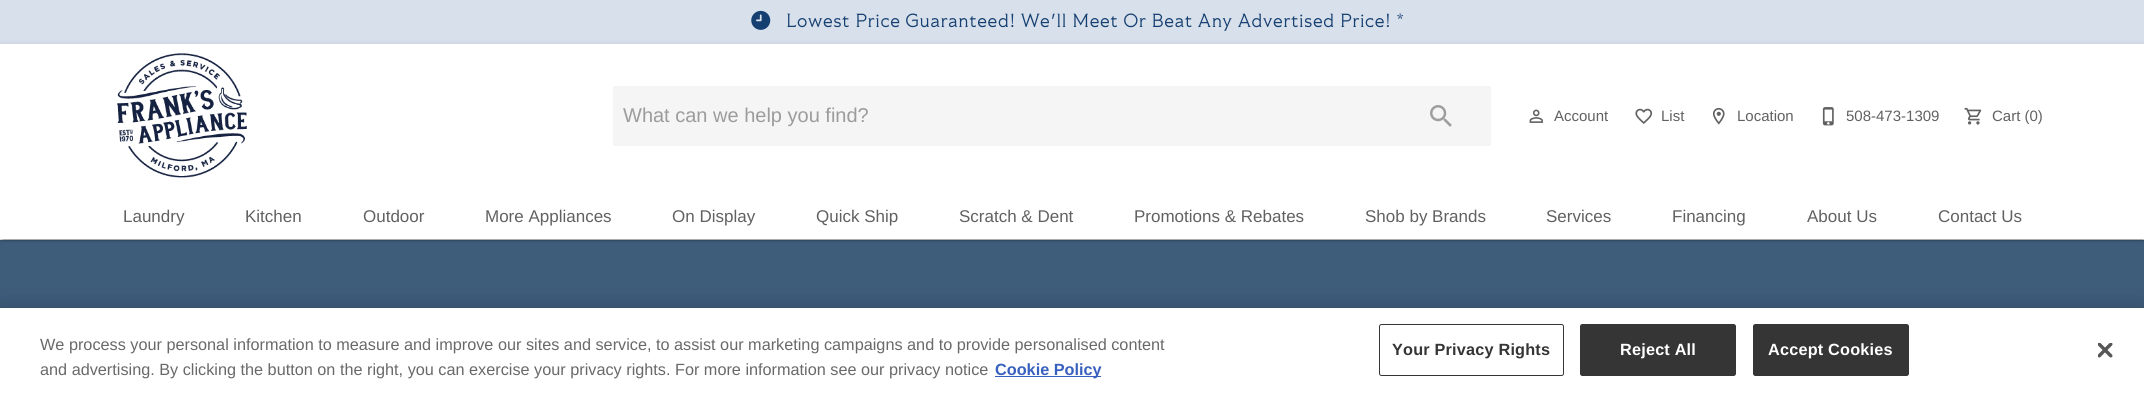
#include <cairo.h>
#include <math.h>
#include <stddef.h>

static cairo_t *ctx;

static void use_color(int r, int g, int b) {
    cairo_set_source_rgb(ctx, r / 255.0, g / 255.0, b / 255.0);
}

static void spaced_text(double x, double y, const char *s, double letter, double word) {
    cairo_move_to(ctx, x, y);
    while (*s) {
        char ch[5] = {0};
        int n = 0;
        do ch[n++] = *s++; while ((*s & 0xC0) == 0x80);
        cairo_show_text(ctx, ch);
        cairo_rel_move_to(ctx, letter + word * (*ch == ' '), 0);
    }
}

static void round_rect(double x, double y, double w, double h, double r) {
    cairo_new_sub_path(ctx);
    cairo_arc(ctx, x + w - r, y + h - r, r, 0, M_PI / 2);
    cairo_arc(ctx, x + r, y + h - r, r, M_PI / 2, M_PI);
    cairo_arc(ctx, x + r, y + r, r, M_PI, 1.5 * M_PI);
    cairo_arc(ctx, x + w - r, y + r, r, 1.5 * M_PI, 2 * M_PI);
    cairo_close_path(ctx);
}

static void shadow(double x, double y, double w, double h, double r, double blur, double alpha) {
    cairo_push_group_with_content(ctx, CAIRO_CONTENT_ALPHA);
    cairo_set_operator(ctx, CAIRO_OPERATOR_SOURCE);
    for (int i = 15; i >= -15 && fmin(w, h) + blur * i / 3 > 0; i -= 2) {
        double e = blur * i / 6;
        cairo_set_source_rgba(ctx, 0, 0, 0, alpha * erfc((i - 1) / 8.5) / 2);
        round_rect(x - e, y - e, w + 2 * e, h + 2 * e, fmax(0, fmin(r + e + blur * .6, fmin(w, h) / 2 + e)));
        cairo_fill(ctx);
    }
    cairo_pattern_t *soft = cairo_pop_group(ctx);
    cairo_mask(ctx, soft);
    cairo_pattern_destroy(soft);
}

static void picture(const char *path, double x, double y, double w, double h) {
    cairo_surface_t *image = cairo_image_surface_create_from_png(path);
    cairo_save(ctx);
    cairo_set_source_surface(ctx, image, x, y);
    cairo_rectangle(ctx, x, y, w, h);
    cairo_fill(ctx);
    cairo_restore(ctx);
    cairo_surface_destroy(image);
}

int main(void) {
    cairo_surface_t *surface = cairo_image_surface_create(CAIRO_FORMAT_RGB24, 2144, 396);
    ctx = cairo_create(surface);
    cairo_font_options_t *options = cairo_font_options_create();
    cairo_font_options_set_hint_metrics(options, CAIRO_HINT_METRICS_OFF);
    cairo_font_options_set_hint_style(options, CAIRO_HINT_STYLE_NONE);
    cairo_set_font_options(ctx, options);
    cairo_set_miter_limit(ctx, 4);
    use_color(255, 255, 255);
    cairo_paint(ctx);
    use_color(216, 225, 235);
    cairo_rectangle(ctx, 0, 0, 2144, 44);
    cairo_fill(ctx);
    picture("img1.png", 751, 10, 20, 20);
    cairo_select_font_face(ctx, "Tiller", CAIRO_FONT_SLANT_NORMAL, CAIRO_FONT_WEIGHT_NORMAL);
    cairo_set_font_size(ctx, 19);
    use_color(22, 63, 113);
    spaced_text(786, 27, "Lowest Price Guaranteed! We'll Meet Or Beat Any Advertised Price! *", 0.6, 0);
    use_color(62, 93, 123);
    cairo_rectangle(ctx, 0, 240, 2144, 68);
    cairo_fill(ctx);
    use_color(0, 0, 0);
    shadow(0, 45, 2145, 195, 0, 3, 0.12);
    shadow(0, 46, 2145, 195, 0, 1, 0.14);
    shadow(3, 50, 2140, 190, 0, 0.5, 0.2);
    use_color(255, 255, 255);
    cairo_rectangle(ctx, 0, 44, 2144, 195);
    cairo_fill(ctx);
    picture("img2.png", 117, 53, 130, 125);
    use_color(245, 245, 245);
    cairo_rectangle(ctx, 613, 86, 878, 60);
    cairo_fill(ctx);
    cairo_select_font_face(ctx, "Liberation Sans", CAIRO_FONT_SLANT_NORMAL, CAIRO_FONT_WEIGHT_NORMAL);
    cairo_set_font_size(ctx, 20);
    use_color(156, 156, 156);
    cairo_move_to(ctx, 623, 122);
    cairo_show_text(ctx, "What can we help you find?");
    picture("img3.png", 1430, 105, 22, 22);
    picture("img4.png", 1529, 109, 14, 14);
    cairo_set_font_size(ctx, 15);
    use_color(97, 97, 97);
    cairo_move_to(ctx, 1554, 121);
    cairo_show_text(ctx, "Account");
    picture("img5.png", 1635, 108, 18, 16);
    cairo_move_to(ctx, 1661, 121);
    cairo_show_text(ctx, "List");
    picture("img6.png", 1712, 107, 13, 18);
    cairo_move_to(ctx, 1737, 121);
    cairo_show_text(ctx, "Location");
    picture("img7.png", 1822, 107, 12, 19);
    cairo_move_to(ctx, 1846, 121);
    cairo_show_text(ctx, "508-473-1309");
    picture("img8.png", 1964, 107, 18, 18);
    cairo_move_to(ctx, 1992, 121);
    cairo_show_text(ctx, "Cart (0)");
    cairo_set_font_size(ctx, 17);
    cairo_move_to(ctx, 123, 222);
    cairo_show_text(ctx, "Laundry");
    cairo_move_to(ctx, 245, 222);
    cairo_show_text(ctx, "Kitchen");
    cairo_move_to(ctx, 363, 222);
    cairo_show_text(ctx, "Outdoor");
    cairo_move_to(ctx, 485, 222);
    cairo_show_text(ctx, "More Appliances");
    cairo_move_to(ctx, 672, 222);
    cairo_show_text(ctx, "On Display");
    cairo_move_to(ctx, 816, 222);
    cairo_show_text(ctx, "Quick Ship");
    cairo_move_to(ctx, 959, 222);
    cairo_show_text(ctx, "Scratch & Dent");
    cairo_move_to(ctx, 1134, 222);
    cairo_show_text(ctx, "Promotions & Rebates");
    cairo_move_to(ctx, 1365, 222);
    cairo_show_text(ctx, "Shob by Brands");
    cairo_move_to(ctx, 1546, 222);
    cairo_show_text(ctx, "Services");
    cairo_move_to(ctx, 1672, 222);
    cairo_show_text(ctx, "Financing");
    cairo_move_to(ctx, 1807, 222);
    cairo_show_text(ctx, "About Us");
    cairo_move_to(ctx, 1938, 222);
    cairo_show_text(ctx, "Contact Us");
    use_color(0, 0, 0);
    shadow(0, 308, 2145, 88, 0, 11, 0.2);
    use_color(255, 255, 255);
    cairo_rectangle(ctx, 0, 308, 2144, 88);
    cairo_fill(ctx);
    cairo_set_font_size(ctx, 16.25);
    use_color(105, 105, 105);
    cairo_move_to(ctx, 40, 350);
    cairo_show_text(ctx, "We process your personal information to measure and improve our sites and service, to assist our marketing campaigns and to provide personalised content");
    cairo_move_to(ctx, 40, 375);
    cairo_show_text(ctx, "and advertising. By clicking the button on the right, you can exercise your privacy rights. For more information see our privacy notice");
    use_color(56, 96, 190);
    cairo_rectangle(ctx, 995, 376, 106, 1);
    cairo_fill(ctx);
    cairo_select_font_face(ctx, "Liberation Sans", CAIRO_FONT_SLANT_NORMAL, CAIRO_FONT_WEIGHT_BOLD);
    cairo_move_to(ctx, 995, 375);
    cairo_show_text(ctx, "Cookie Policy");
    round_rect(1379.5, 324.5, 184, 51, 2);
    use_color(53, 53, 53);
    cairo_set_line_width(ctx, 1);
    cairo_stroke(ctx);
    spaced_text(1392, 355, "Your Privacy Rights", 0.2, 0);
    round_rect(1580.5, 324.5, 155, 51, 2);
    cairo_fill_preserve(ctx);
    cairo_stroke(ctx);
    use_color(255, 255, 255);
    spaced_text(1620, 355, "Reject All", 0.2, 0);
    use_color(53, 53, 53);
    round_rect(1753.5, 324.5, 155, 51, 2);
    cairo_fill_preserve(ctx);
    cairo_stroke(ctx);
    use_color(255, 255, 255);
    spaced_text(1768, 355, "Accept Cookies", 0.2, 0);
    picture("img9.png", 2098, 343, 15, 15);
    cairo_surface_write_to_png(surface, "result.png");
    cairo_font_options_destroy(options);
    cairo_destroy(ctx);
    cairo_surface_destroy(surface);
    return 0;
}
